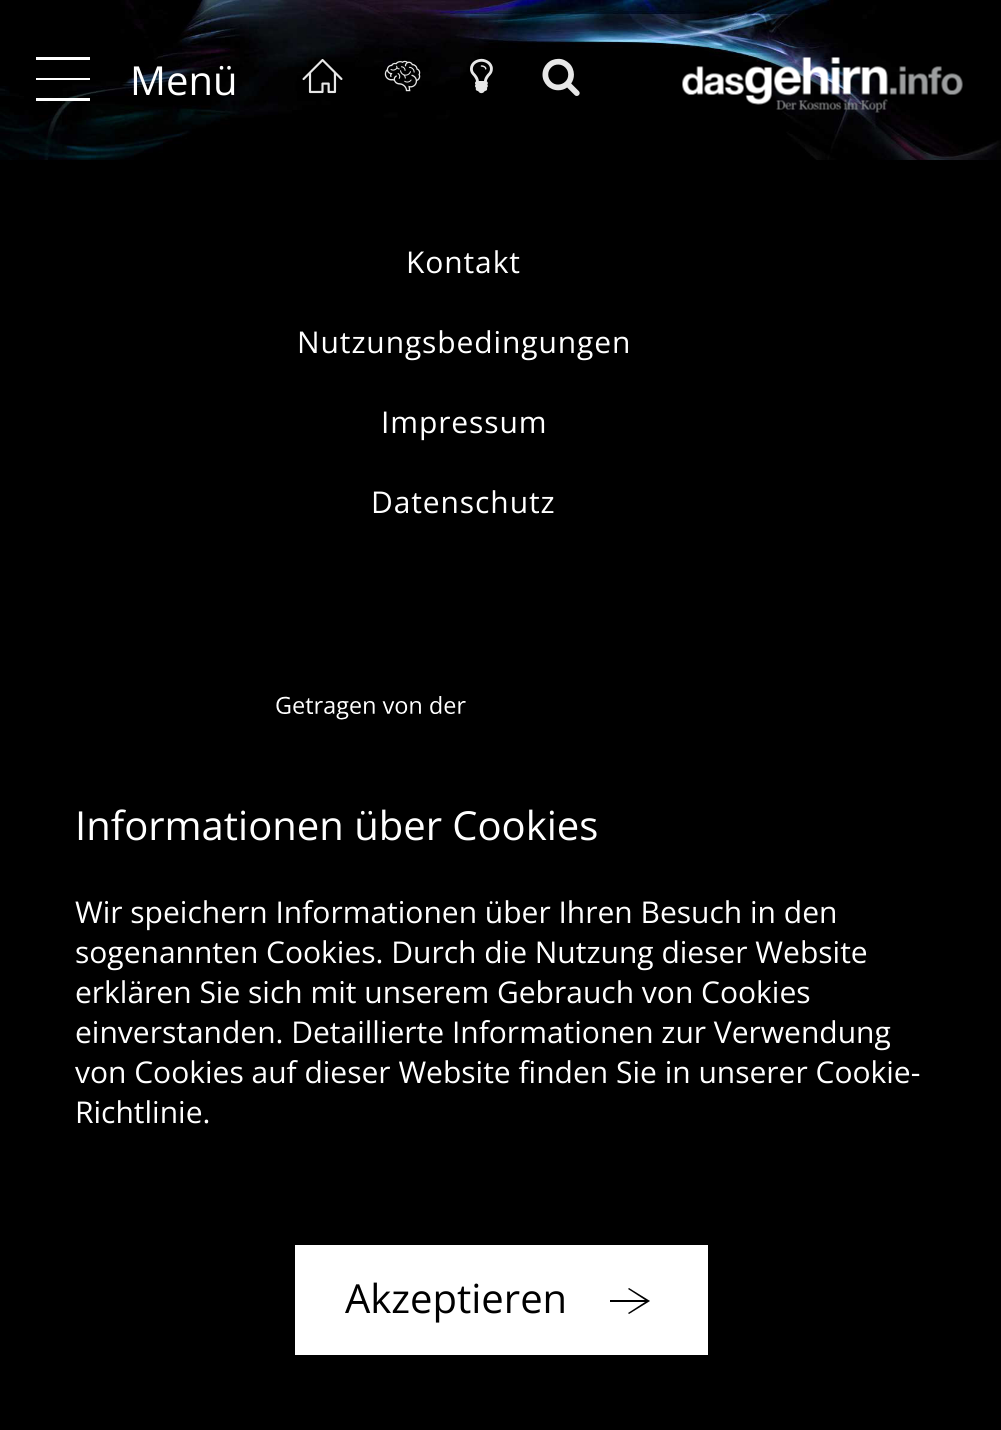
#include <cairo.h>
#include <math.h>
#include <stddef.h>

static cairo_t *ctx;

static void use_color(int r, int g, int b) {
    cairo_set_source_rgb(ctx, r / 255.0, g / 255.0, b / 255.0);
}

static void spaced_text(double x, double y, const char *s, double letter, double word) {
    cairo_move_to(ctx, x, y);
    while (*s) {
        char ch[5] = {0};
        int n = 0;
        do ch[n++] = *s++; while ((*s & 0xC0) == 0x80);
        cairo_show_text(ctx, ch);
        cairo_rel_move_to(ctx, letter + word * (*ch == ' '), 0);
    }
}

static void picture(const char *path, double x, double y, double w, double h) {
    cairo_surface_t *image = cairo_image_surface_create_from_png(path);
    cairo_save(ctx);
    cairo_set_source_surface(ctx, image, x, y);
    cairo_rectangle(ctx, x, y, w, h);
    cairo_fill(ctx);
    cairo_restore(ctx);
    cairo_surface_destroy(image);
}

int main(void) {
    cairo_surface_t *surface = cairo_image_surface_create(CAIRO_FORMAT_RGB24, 1001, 1430);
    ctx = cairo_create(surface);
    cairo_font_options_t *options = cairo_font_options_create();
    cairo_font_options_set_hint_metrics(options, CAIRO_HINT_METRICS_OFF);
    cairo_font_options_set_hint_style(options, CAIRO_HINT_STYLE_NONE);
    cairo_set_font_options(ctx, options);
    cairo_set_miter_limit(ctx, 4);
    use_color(0, 0, 0);
    cairo_paint(ctx);
    picture("img1.png", 0, 0, 1001, 160);
    use_color(255, 255, 255);
    cairo_new_path(ctx);
    cairo_move_to(ctx, 90, 98);
    cairo_line_to(ctx, 36, 98);
    cairo_line_to(ctx, 36, 101);
    cairo_line_to(ctx, 90, 101);
    cairo_close_path(ctx);
    cairo_move_to(ctx, 90, 57);
    cairo_line_to(ctx, 36, 57);
    cairo_line_to(ctx, 36, 60);
    cairo_line_to(ctx, 90, 60);
    cairo_close_path(ctx);
    cairo_move_to(ctx, 90, 78);
    cairo_line_to(ctx, 36, 78);
    cairo_line_to(ctx, 36, 80);
    cairo_line_to(ctx, 90, 80);
    cairo_close_path(ctx);
    cairo_fill(ctx);
    cairo_select_font_face(ctx, "Open Sans", CAIRO_FONT_SLANT_NORMAL, CAIRO_FONT_WEIGHT_NORMAL);
    cairo_set_font_size(ctx, 40);
    cairo_move_to(ctx, 130, 95);
    cairo_show_text(ctx, "Menü");
    picture("img2.png", 302, 59, 41, 35);
    picture("img3.png", 384, 60, 37, 32);
    picture("img4.png", 470, 58, 23, 36);
    picture("img5.png", 542, 58, 38, 38);
    picture("img6.png", 682, 57, 281, 56);
    cairo_set_font_size(ctx, 30);
    spaced_text(406, 273, "Kontakt", 0.9, 0);
    spaced_text(297, 353, "Nutzungsbedingungen", 0.9, 0);
    spaced_text(381, 433, "Impressum", 0.9, 0);
    spaced_text(371, 513, "Datenschutz", 0.9, 0);
    picture("img7.png", 276, 696, 190, 24);
    cairo_set_font_size(ctx, 40);
    cairo_move_to(ctx, 75, 840);
    cairo_show_text(ctx, "Informationen über Cookies");
    cairo_set_font_size(ctx, 30);
    cairo_move_to(ctx, 75, 923);
    cairo_show_text(ctx, "Wir speichern Informationen über Ihren Besuch in den");
    cairo_move_to(ctx, 75, 963);
    cairo_show_text(ctx, "sogenannten Cookies. Durch die Nutzung dieser Website");
    cairo_move_to(ctx, 75, 1003);
    cairo_show_text(ctx, "erklären Sie sich mit unserem Gebrauch von Cookies");
    cairo_move_to(ctx, 75, 1043);
    cairo_show_text(ctx, "einverstanden. Detaillierte Informationen zur Verwendung");
    cairo_move_to(ctx, 75, 1083);
    cairo_show_text(ctx, "von Cookies auf dieser Website finden Sie in unserer Cookie-");
    cairo_move_to(ctx, 75, 1123);
    cairo_show_text(ctx, "Richtlinie.");
    cairo_rectangle(ctx, 295, 1245, 413, 110);
    cairo_fill(ctx);
    cairo_set_font_size(ctx, 40);
    use_color(0, 0, 0);
    cairo_move_to(ctx, 345, 1313);
    cairo_show_text(ctx, "Akzeptieren");
    cairo_new_path(ctx);
    cairo_move_to(ctx, 645, 1300);
    cairo_line_to(ctx, 628, 1289);
    cairo_line_to(ctx, 629, 1288);
    cairo_line_to(ctx, 650, 1301);
    cairo_line_to(ctx, 629, 1314);
    cairo_line_to(ctx, 628, 1313);
    cairo_line_to(ctx, 645, 1302);
    cairo_line_to(ctx, 610, 1302);
    cairo_line_to(ctx, 610, 1300);
    cairo_close_path(ctx);
    cairo_fill(ctx);
    cairo_surface_write_to_png(surface, "result.png");
    cairo_font_options_destroy(options);
    cairo_destroy(ctx);
    cairo_surface_destroy(surface);
    return 0;
}
